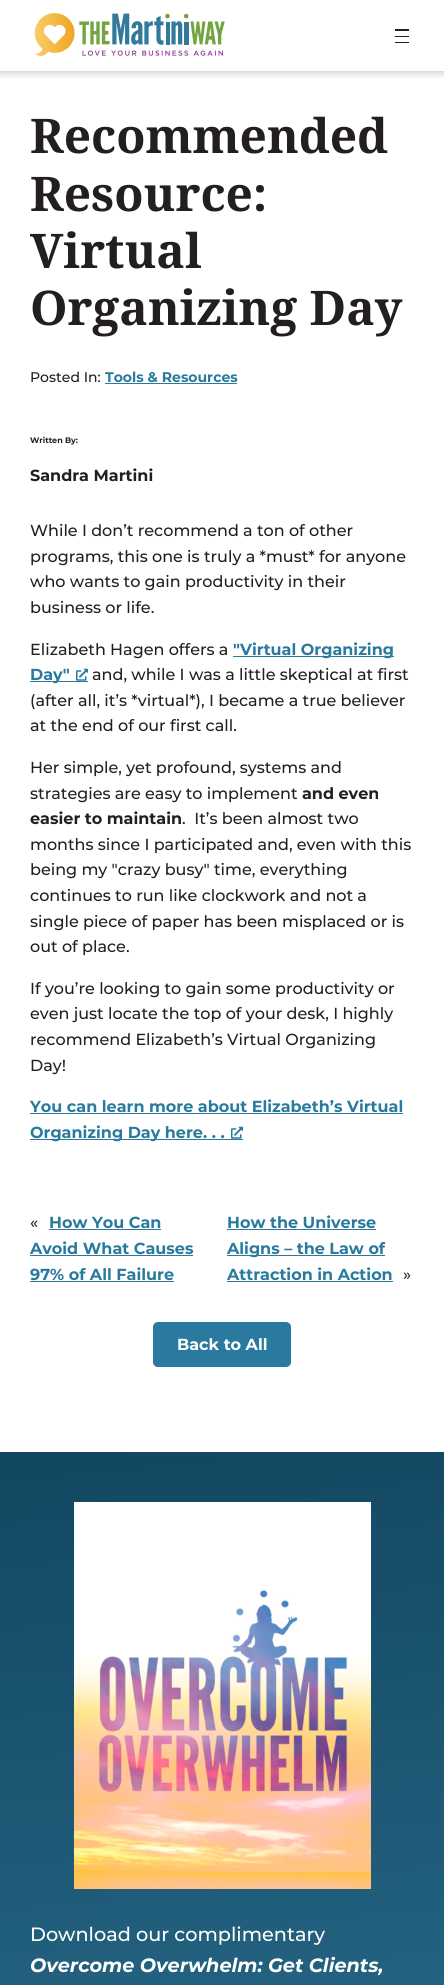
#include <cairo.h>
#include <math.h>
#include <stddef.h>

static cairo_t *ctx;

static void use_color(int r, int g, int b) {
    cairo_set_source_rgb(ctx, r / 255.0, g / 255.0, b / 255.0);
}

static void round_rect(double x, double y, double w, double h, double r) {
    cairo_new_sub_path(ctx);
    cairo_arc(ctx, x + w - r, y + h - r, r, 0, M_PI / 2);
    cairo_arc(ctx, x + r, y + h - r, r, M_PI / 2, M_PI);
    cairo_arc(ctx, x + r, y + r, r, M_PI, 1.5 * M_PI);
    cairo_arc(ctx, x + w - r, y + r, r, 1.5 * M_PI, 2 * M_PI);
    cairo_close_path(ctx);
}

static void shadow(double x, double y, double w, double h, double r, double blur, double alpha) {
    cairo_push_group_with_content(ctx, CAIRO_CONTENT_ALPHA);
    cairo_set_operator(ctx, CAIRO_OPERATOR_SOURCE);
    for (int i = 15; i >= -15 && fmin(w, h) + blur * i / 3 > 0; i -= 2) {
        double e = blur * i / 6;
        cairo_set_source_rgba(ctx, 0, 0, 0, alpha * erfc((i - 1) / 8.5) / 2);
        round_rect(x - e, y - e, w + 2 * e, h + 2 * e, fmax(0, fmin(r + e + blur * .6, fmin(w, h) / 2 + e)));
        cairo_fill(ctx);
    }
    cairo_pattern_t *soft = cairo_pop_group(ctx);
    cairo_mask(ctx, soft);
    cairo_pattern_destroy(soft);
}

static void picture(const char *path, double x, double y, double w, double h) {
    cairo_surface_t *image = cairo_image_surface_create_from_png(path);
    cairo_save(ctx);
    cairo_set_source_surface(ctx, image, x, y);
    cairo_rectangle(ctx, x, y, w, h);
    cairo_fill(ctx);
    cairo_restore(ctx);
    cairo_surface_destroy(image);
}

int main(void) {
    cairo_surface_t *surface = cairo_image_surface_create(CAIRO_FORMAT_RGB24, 444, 1985);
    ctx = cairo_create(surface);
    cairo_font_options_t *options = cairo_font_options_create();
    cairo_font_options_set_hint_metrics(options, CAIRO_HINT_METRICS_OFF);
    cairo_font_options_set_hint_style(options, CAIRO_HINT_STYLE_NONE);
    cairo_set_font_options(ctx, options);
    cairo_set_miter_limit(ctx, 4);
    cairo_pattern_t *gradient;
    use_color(255, 255, 255);
    cairo_paint(ctx);
    cairo_save(ctx);
    cairo_rectangle(ctx, 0, 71, 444, 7);
    cairo_clip(ctx);
    use_color(0, 0, 0);
    shadow(0, 0, 444, 71, 0, 5, 0.3);
    cairo_restore(ctx);
    picture("img1.png", 34, 13, 191, 43);
    use_color(35, 31, 32);
    cairo_rectangle(ctx, 395, 29, 14, 2);
    cairo_fill(ctx);
    cairo_rectangle(ctx, 395, 36, 14, 1);
    cairo_fill(ctx);
    cairo_rectangle(ctx, 395, 42, 14, 1);
    cairo_fill(ctx);
    cairo_select_font_face(ctx, "Noto Serif", CAIRO_FONT_SLANT_NORMAL, CAIRO_FONT_WEIGHT_BOLD);
    cairo_set_font_size(ctx, 47.75);
    cairo_move_to(ctx, 30, 153);
    cairo_show_text(ctx, "Recommended");
    cairo_move_to(ctx, 30, 211);
    cairo_show_text(ctx, "Resource:");
    cairo_move_to(ctx, 30, 268);
    cairo_show_text(ctx, "Virtual");
    cairo_move_to(ctx, 30, 325);
    cairo_show_text(ctx, "Organizing Day");
    cairo_select_font_face(ctx, "Montserrat Medium", CAIRO_FONT_SLANT_NORMAL, CAIRO_FONT_WEIGHT_NORMAL);
    cairo_set_font_size(ctx, 14);
    cairo_move_to(ctx, 30, 382);
    cairo_show_text(ctx, "Posted In:");
    cairo_select_font_face(ctx, "Montserrat", CAIRO_FONT_SLANT_NORMAL, CAIRO_FONT_WEIGHT_BOLD);
    use_color(41, 122, 158);
    cairo_move_to(ctx, 105, 382);
    cairo_show_text(ctx, "Tools & Resources");
    cairo_rectangle(ctx, 105, 383, 132, 1);
    cairo_fill(ctx);
    cairo_set_font_size(ctx, 8);
    use_color(35, 31, 32);
    cairo_move_to(ctx, 30, 443);
    cairo_show_text(ctx, "Written By:");
    cairo_set_font_size(ctx, 16);
    cairo_move_to(ctx, 30, 481);
    cairo_show_text(ctx, "Sandra Martini");
    cairo_select_font_face(ctx, "Montserrat Medium", CAIRO_FONT_SLANT_NORMAL, CAIRO_FONT_WEIGHT_NORMAL);
    cairo_move_to(ctx, 30, 536);
    cairo_show_text(ctx, "While I don’t recommend a ton of other");
    cairo_move_to(ctx, 30, 562);
    cairo_show_text(ctx, "programs, this one is truly a *must* for anyone");
    cairo_move_to(ctx, 30, 587);
    cairo_show_text(ctx, "who wants to gain productivity in their");
    cairo_move_to(ctx, 30, 613);
    cairo_show_text(ctx, "business or life.");
    cairo_move_to(ctx, 30, 655);
    cairo_show_text(ctx, "Elizabeth Hagen offers a");
    use_color(41, 122, 158);
    cairo_rectangle(ctx, 233, 656, 161, 1);
    cairo_fill(ctx);
    cairo_select_font_face(ctx, "Montserrat", CAIRO_FONT_SLANT_NORMAL, CAIRO_FONT_WEIGHT_BOLD);
    cairo_move_to(ctx, 233, 655);
    cairo_show_text(ctx, "\"Virtual Organizing");
    cairo_rectangle(ctx, 30, 681, 58, 1);
    cairo_fill(ctx);
    cairo_move_to(ctx, 30, 680);
    cairo_show_text(ctx, "Day\"");
    picture("img2.png", 76, 668, 12, 13);
    cairo_select_font_face(ctx, "Montserrat Medium", CAIRO_FONT_SLANT_NORMAL, CAIRO_FONT_WEIGHT_NORMAL);
    use_color(35, 31, 32);
    cairo_move_to(ctx, 92, 680);
    cairo_show_text(ctx, "and, while I was a little skeptical at first");
    cairo_move_to(ctx, 30, 706);
    cairo_show_text(ctx, "(after all, it’s *virtual*), I became a true believer");
    cairo_move_to(ctx, 30, 731);
    cairo_show_text(ctx, "at the end of our first call.");
    cairo_move_to(ctx, 30, 773);
    cairo_show_text(ctx, "Her simple, yet profound, systems and");
    cairo_move_to(ctx, 30, 799);
    cairo_show_text(ctx, "strategies are easy to implement");
    cairo_select_font_face(ctx, "Montserrat", CAIRO_FONT_SLANT_NORMAL, CAIRO_FONT_WEIGHT_BOLD);
    cairo_move_to(ctx, 302, 799);
    cairo_show_text(ctx, "and even");
    cairo_move_to(ctx, 30, 824);
    cairo_show_text(ctx, "easier to maintain");
    cairo_select_font_face(ctx, "Montserrat Medium", CAIRO_FONT_SLANT_NORMAL, CAIRO_FONT_WEIGHT_NORMAL);
    cairo_move_to(ctx, 182, 824);
    cairo_show_text(ctx, ".  It’s been almost two");
    cairo_move_to(ctx, 30, 850);
    cairo_show_text(ctx, "months since I participated and, even with this");
    cairo_move_to(ctx, 30, 875);
    cairo_show_text(ctx, "being my \"crazy busy\" time, everything");
    cairo_move_to(ctx, 30, 901);
    cairo_show_text(ctx, "continues to run like clockwork and not a");
    cairo_move_to(ctx, 30, 927);
    cairo_show_text(ctx, "single piece of paper has been misplaced or is");
    cairo_move_to(ctx, 30, 952);
    cairo_show_text(ctx, "out of place.");
    cairo_move_to(ctx, 30, 994);
    cairo_show_text(ctx, "If you’re looking to gain some productivity or");
    cairo_move_to(ctx, 30, 1019);
    cairo_show_text(ctx, "even just locate the top of your desk, I highly");
    cairo_move_to(ctx, 30, 1045);
    cairo_show_text(ctx, "recommend Elizabeth’s Virtual Organizing");
    cairo_move_to(ctx, 30, 1071);
    cairo_show_text(ctx, "Day!");
    cairo_select_font_face(ctx, "Montserrat", CAIRO_FONT_SLANT_NORMAL, CAIRO_FONT_WEIGHT_BOLD);
    use_color(41, 122, 158);
    cairo_move_to(ctx, 30, 1112);
    cairo_show_text(ctx, "You can learn more about Elizabeth’s Virtual");
    cairo_rectangle(ctx, 30, 1113, 373, 1);
    cairo_fill(ctx);
    cairo_rectangle(ctx, 30, 1139, 213, 1);
    cairo_fill(ctx);
    cairo_move_to(ctx, 30, 1138);
    cairo_show_text(ctx, "Organizing Day here. . .");
    picture("img2.png", 231, 1126, 12, 13);
    cairo_select_font_face(ctx, "Montserrat Medium", CAIRO_FONT_SLANT_NORMAL, CAIRO_FONT_WEIGHT_NORMAL);
    use_color(35, 31, 32);
    cairo_move_to(ctx, 30, 1228);
    cairo_show_text(ctx, "«");
    cairo_select_font_face(ctx, "Montserrat", CAIRO_FONT_SLANT_NORMAL, CAIRO_FONT_WEIGHT_BOLD);
    use_color(41, 122, 158);
    cairo_move_to(ctx, 49, 1228);
    cairo_show_text(ctx, "How You Can");
    cairo_rectangle(ctx, 49, 1229, 112, 1);
    cairo_fill(ctx);
    cairo_move_to(ctx, 30, 1254);
    cairo_show_text(ctx, "Avoid What Causes");
    cairo_rectangle(ctx, 30, 1255, 163, 1);
    cairo_fill(ctx);
    cairo_move_to(ctx, 30, 1280);
    cairo_show_text(ctx, "97% of All Failure");
    cairo_rectangle(ctx, 30, 1281, 144, 1);
    cairo_fill(ctx);
    cairo_move_to(ctx, 227, 1228);
    cairo_show_text(ctx, "How the Universe");
    cairo_rectangle(ctx, 227, 1229, 149, 1);
    cairo_fill(ctx);
    cairo_rectangle(ctx, 227, 1255, 158, 1);
    cairo_fill(ctx);
    cairo_move_to(ctx, 227, 1254);
    cairo_show_text(ctx, "Aligns – the Law of");
    cairo_move_to(ctx, 227, 1280);
    cairo_show_text(ctx, "Attraction in Action");
    cairo_rectangle(ctx, 227, 1281, 166, 1);
    cairo_fill(ctx);
    cairo_select_font_face(ctx, "Montserrat Medium", CAIRO_FONT_SLANT_NORMAL, CAIRO_FONT_WEIGHT_NORMAL);
    use_color(35, 31, 32);
    cairo_move_to(ctx, 403, 1280);
    cairo_show_text(ctx, "»");
    use_color(41, 122, 158);
    round_rect(153, 1322, 138, 45, 5);
    cairo_fill(ctx);
    cairo_select_font_face(ctx, "Montserrat", CAIRO_FONT_SLANT_NORMAL, CAIRO_FONT_WEIGHT_BOLD);
    use_color(255, 255, 255);
    cairo_move_to(ctx, 177, 1350);
    cairo_show_text(ctx, "Back to All");
    gradient = cairo_pattern_create_linear(278, 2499, 166, 1435);
    cairo_pattern_add_color_stop_rgba(gradient, 0, 0.196, 0.475, 0.612, 1);
    cairo_pattern_add_color_stop_rgba(gradient, 1, 0.071, 0.278, 0.38, 1);
    cairo_set_source(ctx, gradient);
    cairo_pattern_destroy(gradient);
    cairo_rectangle(ctx, 0, 1452, 444, 533);
    cairo_fill(ctx);
    picture("img3.png", 74, 1502, 297, 387);
    cairo_select_font_face(ctx, "Montserrat Medium", CAIRO_FONT_SLANT_NORMAL, CAIRO_FONT_WEIGHT_NORMAL);
    cairo_set_font_size(ctx, 19.25);
    use_color(255, 255, 255);
    cairo_move_to(ctx, 30, 1941);
    cairo_show_text(ctx, "Download our complimentary");
    cairo_select_font_face(ctx, "Montserrat", CAIRO_FONT_SLANT_ITALIC, CAIRO_FONT_WEIGHT_BOLD);
    cairo_move_to(ctx, 30, 1972);
    cairo_show_text(ctx, "Overcome Overwhelm: Get Clients,");
    cairo_surface_write_to_png(surface, "result.png");
    cairo_font_options_destroy(options);
    cairo_destroy(ctx);
    cairo_surface_destroy(surface);
    return 0;
}
